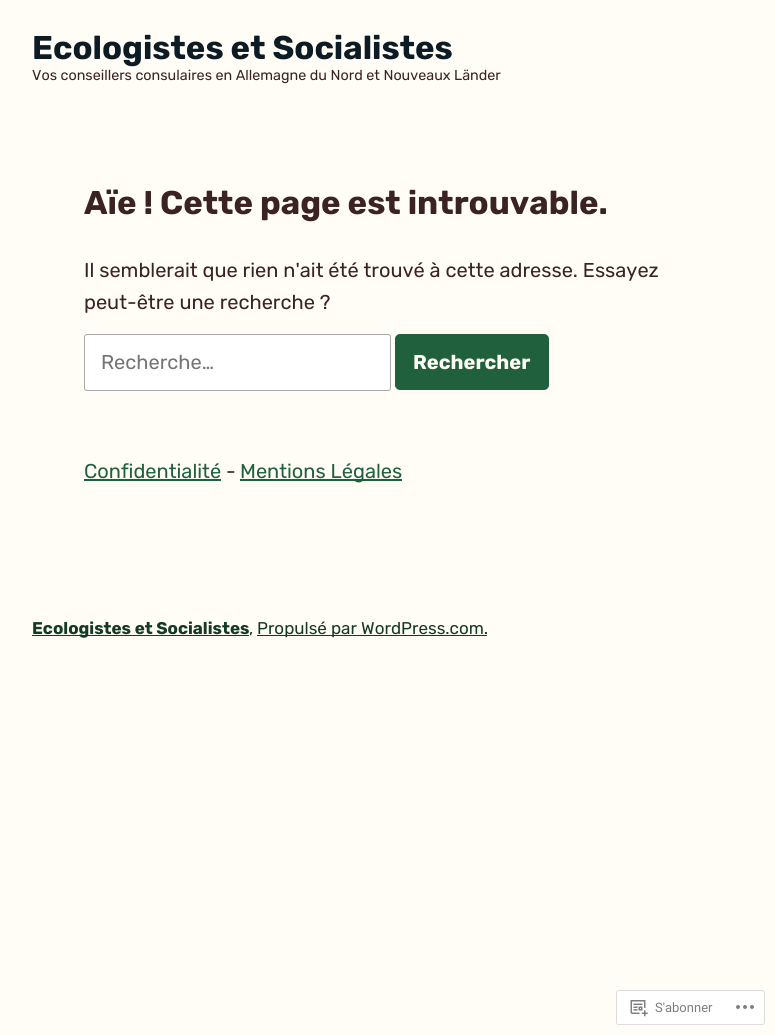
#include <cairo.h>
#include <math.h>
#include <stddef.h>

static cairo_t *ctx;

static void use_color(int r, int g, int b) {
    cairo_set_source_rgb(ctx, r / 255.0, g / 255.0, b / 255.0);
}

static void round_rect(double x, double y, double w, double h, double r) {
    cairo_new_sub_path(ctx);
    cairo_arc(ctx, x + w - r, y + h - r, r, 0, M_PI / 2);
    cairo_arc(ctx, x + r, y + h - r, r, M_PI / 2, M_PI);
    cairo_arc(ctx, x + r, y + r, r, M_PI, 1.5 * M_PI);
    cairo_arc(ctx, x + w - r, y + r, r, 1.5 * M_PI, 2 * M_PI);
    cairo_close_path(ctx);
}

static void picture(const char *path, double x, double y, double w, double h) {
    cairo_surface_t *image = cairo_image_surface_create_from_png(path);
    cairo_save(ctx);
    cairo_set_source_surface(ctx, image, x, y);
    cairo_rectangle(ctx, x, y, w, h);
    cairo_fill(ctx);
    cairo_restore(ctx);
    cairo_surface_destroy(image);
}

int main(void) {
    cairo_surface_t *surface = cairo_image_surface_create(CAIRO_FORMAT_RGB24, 775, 1035);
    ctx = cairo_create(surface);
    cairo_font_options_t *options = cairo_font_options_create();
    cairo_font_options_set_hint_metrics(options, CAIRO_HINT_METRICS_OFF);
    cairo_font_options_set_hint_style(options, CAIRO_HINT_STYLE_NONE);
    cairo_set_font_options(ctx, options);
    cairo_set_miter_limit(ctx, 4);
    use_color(255, 253, 246);
    cairo_paint(ctx);
    cairo_select_font_face(ctx, "Rubik", CAIRO_FONT_SLANT_NORMAL, CAIRO_FONT_WEIGHT_BOLD);
    cairo_set_font_size(ctx, 32.9);
    use_color(13, 27, 36);
    cairo_move_to(ctx, 32, 59);
    cairo_show_text(ctx, "Ecologistes et Socialistes");
    cairo_select_font_face(ctx, "Rubik", CAIRO_FONT_SLANT_NORMAL, CAIRO_FONT_WEIGHT_NORMAL);
    cairo_set_font_size(ctx, 14.35);
    use_color(60, 35, 35);
    cairo_move_to(ctx, 32, 80);
    cairo_show_text(ctx, "Vos conseillers consulaires en Allemagne du Nord et Nouveaux Länder");
    cairo_select_font_face(ctx, "Rubik", CAIRO_FONT_SLANT_NORMAL, CAIRO_FONT_WEIGHT_BOLD);
    cairo_set_font_size(ctx, 32.9);
    cairo_move_to(ctx, 84, 214);
    cairo_show_text(ctx, "Aïe ! Cette page est introuvable.");
    cairo_select_font_face(ctx, "Rubik", CAIRO_FONT_SLANT_NORMAL, CAIRO_FONT_WEIGHT_NORMAL);
    cairo_set_font_size(ctx, 20);
    cairo_move_to(ctx, 84, 277);
    cairo_show_text(ctx, "Il semblerait que rien n'ait été trouvé à cette adresse. Essayez");
    cairo_move_to(ctx, 84, 309);
    cairo_show_text(ctx, "peut-être une recherche ?");
    use_color(255, 255, 255);
    round_rect(84.5, 334.5, 306, 56, 2.5);
    cairo_fill_preserve(ctx);
    use_color(170, 170, 170);
    cairo_set_line_width(ctx, 1);
    cairo_stroke(ctx);
    use_color(117, 117, 117);
    cairo_move_to(ctx, 101, 369);
    cairo_show_text(ctx, "Recherche…");
    use_color(32, 96, 60);
    round_rect(395, 334, 154, 56, 5);
    cairo_fill(ctx);
    cairo_select_font_face(ctx, "Rubik", CAIRO_FONT_SLANT_NORMAL, CAIRO_FONT_WEIGHT_BOLD);
    use_color(255, 253, 246);
    cairo_move_to(ctx, 413, 369);
    cairo_show_text(ctx, "Rechercher");
    cairo_select_font_face(ctx, "Rubik", CAIRO_FONT_SLANT_NORMAL, CAIRO_FONT_WEIGHT_NORMAL);
    use_color(32, 96, 60);
    cairo_move_to(ctx, 84, 478);
    cairo_show_text(ctx, "Confidentialité");
    cairo_rectangle(ctx, 84, 479, 137, 2);
    cairo_fill(ctx);
    use_color(60, 35, 35);
    cairo_move_to(ctx, 226, 478);
    cairo_show_text(ctx, "-");
    use_color(32, 96, 60);
    cairo_rectangle(ctx, 240, 479, 162, 2);
    cairo_fill(ctx);
    cairo_move_to(ctx, 240, 478);
    cairo_show_text(ctx, "Mentions Légales");
    use_color(19, 58, 36);
    cairo_rectangle(ctx, 32, 635, 217, 1);
    cairo_fill(ctx);
    cairo_select_font_face(ctx, "Rubik", CAIRO_FONT_SLANT_NORMAL, CAIRO_FONT_WEIGHT_BOLD);
    cairo_set_font_size(ctx, 17);
    cairo_move_to(ctx, 32, 634);
    cairo_show_text(ctx, "Ecologistes et Socialistes");
    cairo_select_font_face(ctx, "Rubik", CAIRO_FONT_SLANT_NORMAL, CAIRO_FONT_WEIGHT_NORMAL);
    cairo_move_to(ctx, 249, 634);
    cairo_show_text(ctx, ",");
    cairo_rectangle(ctx, 257, 635, 230, 1);
    cairo_fill(ctx);
    cairo_move_to(ctx, 257, 634);
    cairo_show_text(ctx, "Propulsé par WordPress.com.");
    use_color(255, 255, 255);
    round_rect(616.5, 990.5, 148, 34, 2.5);
    cairo_fill_preserve(ctx);
    use_color(221, 221, 222);
    cairo_stroke(ctx);
    picture("img1.png", 630, 1000, 18, 17);
    cairo_select_font_face(ctx, "Roboto", CAIRO_FONT_SLANT_NORMAL, CAIRO_FONT_WEIGHT_NORMAL);
    cairo_set_font_size(ctx, 13);
    use_color(123, 127, 132);
    cairo_move_to(ctx, 655, 1012);
    cairo_show_text(ctx, "S'abonner");
    picture("img2.png", 736, 1005, 18, 4);
    cairo_surface_write_to_png(surface, "result.png");
    cairo_font_options_destroy(options);
    cairo_destroy(ctx);
    cairo_surface_destroy(surface);
    return 0;
}
